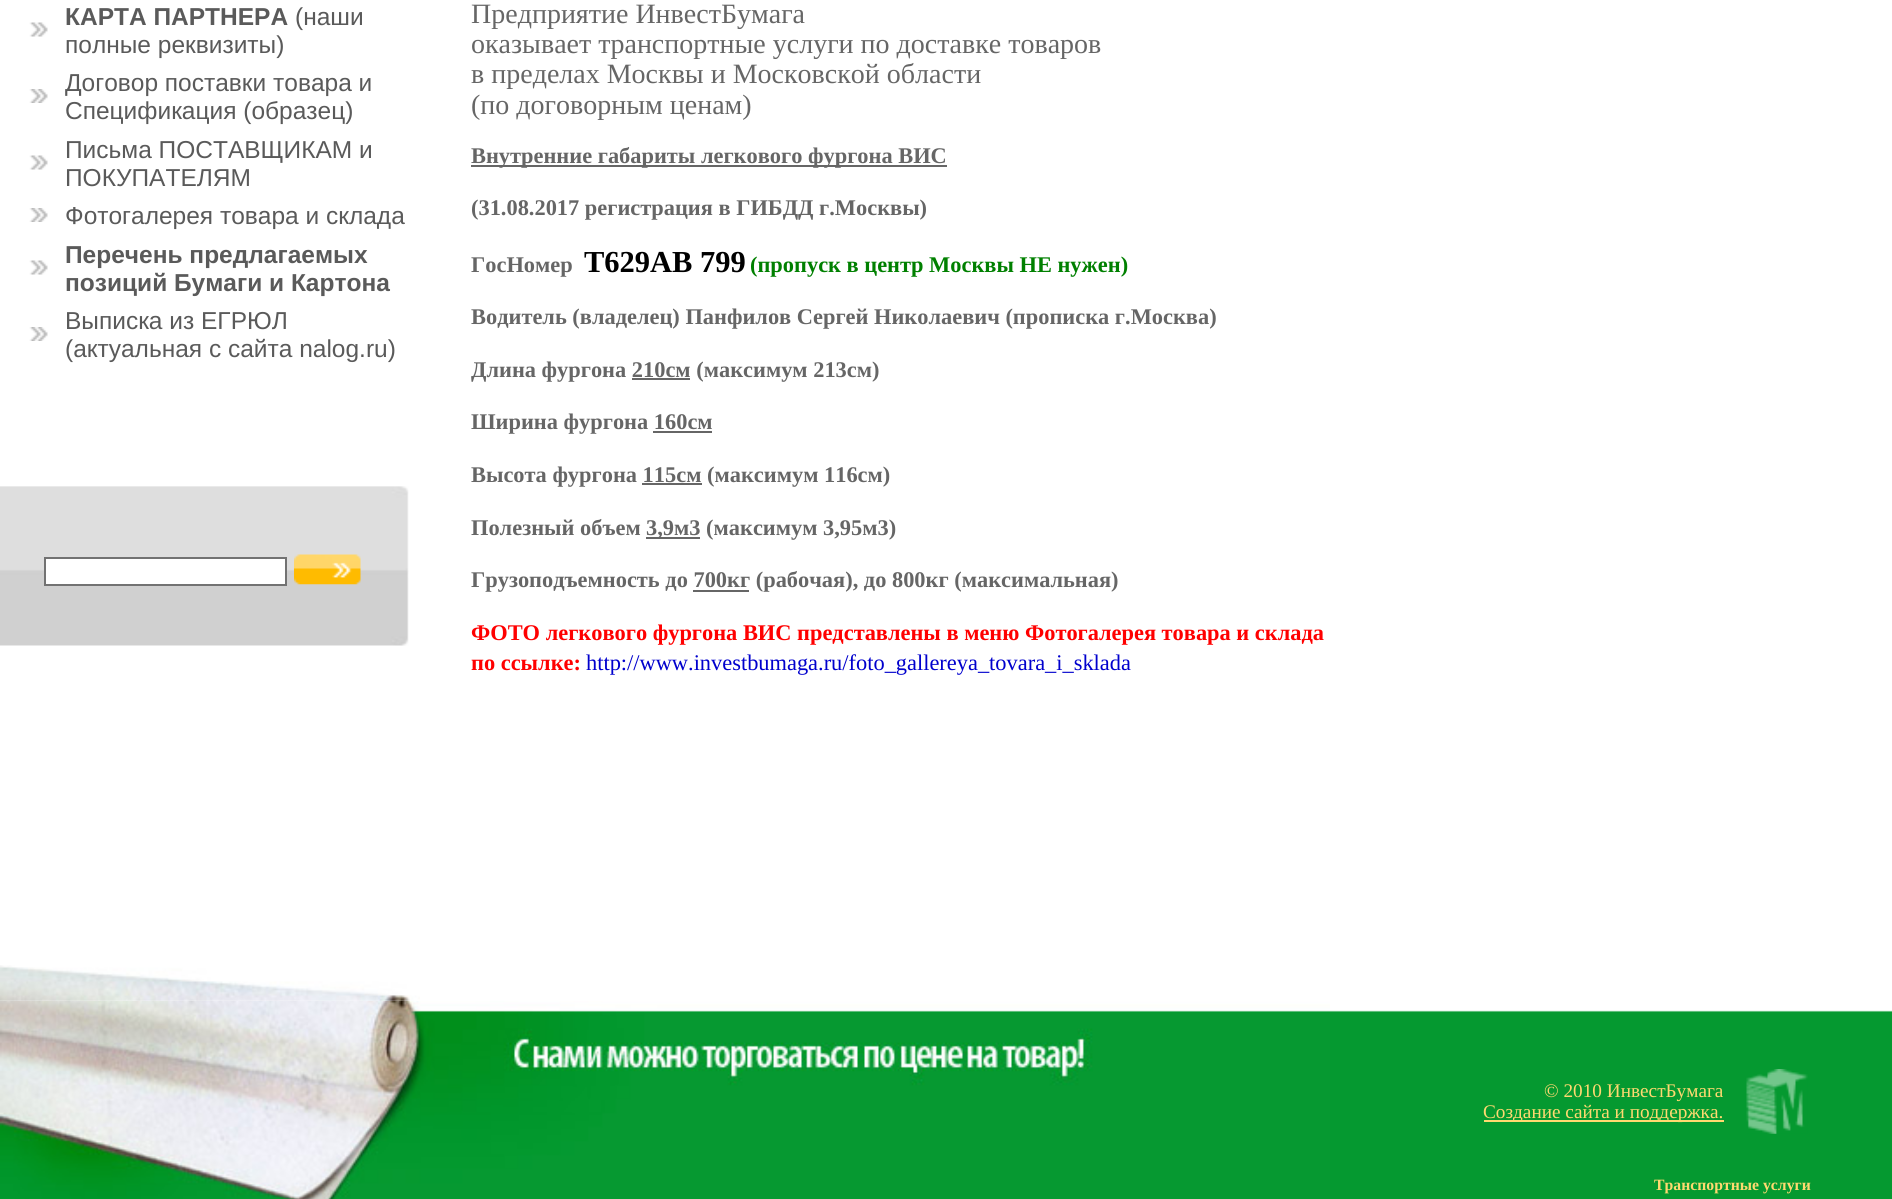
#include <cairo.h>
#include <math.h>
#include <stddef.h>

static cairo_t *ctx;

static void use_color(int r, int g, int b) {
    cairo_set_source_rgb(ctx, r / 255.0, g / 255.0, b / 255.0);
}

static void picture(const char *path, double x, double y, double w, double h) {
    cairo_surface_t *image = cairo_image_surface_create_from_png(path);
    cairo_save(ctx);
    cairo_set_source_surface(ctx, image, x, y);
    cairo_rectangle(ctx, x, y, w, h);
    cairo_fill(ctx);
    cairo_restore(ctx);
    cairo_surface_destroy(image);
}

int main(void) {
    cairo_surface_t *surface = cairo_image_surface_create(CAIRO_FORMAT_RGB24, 1892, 1199);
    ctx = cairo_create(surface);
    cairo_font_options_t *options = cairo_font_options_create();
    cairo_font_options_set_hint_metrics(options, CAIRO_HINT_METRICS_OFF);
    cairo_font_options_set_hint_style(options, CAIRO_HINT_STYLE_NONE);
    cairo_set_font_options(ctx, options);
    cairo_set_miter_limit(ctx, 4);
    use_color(255, 255, 255);
    cairo_paint(ctx);
    picture("img1.png", 1330, 1010, 562, 189);
    picture("img2.png", 29, 22, 19, 15);
    cairo_select_font_face(ctx, "Liberation Sans", CAIRO_FONT_SLANT_NORMAL, CAIRO_FONT_WEIGHT_BOLD);
    cairo_set_font_size(ctx, 24.5);
    use_color(90, 90, 90);
    cairo_move_to(ctx, 65, 25);
    cairo_show_text(ctx, "КАРТА ПАРТНЕРА");
    cairo_select_font_face(ctx, "Liberation Sans", CAIRO_FONT_SLANT_NORMAL, CAIRO_FONT_WEIGHT_NORMAL);
    cairo_move_to(ctx, 295, 25);
    cairo_show_text(ctx, "(наши");
    cairo_move_to(ctx, 65, 53);
    cairo_show_text(ctx, "полные реквизиты)");
    picture("img3.png", 29, 89, 19, 14);
    cairo_move_to(ctx, 65, 91);
    cairo_show_text(ctx, "Договор поставки товара и");
    cairo_move_to(ctx, 65, 119);
    cairo_show_text(ctx, "Спецификация (образец)");
    picture("img2.png", 29, 155, 19, 15);
    cairo_move_to(ctx, 65, 158);
    cairo_show_text(ctx, "Письма ПОСТАВЩИКАМ и");
    cairo_move_to(ctx, 65, 186);
    cairo_show_text(ctx, "ПОКУПАТЕЛЯМ");
    picture("img3.png", 29, 208, 19, 14);
    cairo_move_to(ctx, 65, 224);
    cairo_show_text(ctx, "Фотогалерея товара и склада");
    picture("img2.png", 29, 260, 19, 15);
    cairo_select_font_face(ctx, "Liberation Sans", CAIRO_FONT_SLANT_NORMAL, CAIRO_FONT_WEIGHT_BOLD);
    cairo_move_to(ctx, 65, 263);
    cairo_show_text(ctx, "Перечень предлагаемых");
    cairo_move_to(ctx, 65, 291);
    cairo_show_text(ctx, "позиций Бумаги и Картона");
    picture("img3.png", 29, 327, 19, 14);
    cairo_select_font_face(ctx, "Liberation Sans", CAIRO_FONT_SLANT_NORMAL, CAIRO_FONT_WEIGHT_NORMAL);
    cairo_move_to(ctx, 65, 329);
    cairo_show_text(ctx, "Выписка из ЕГРЮЛ");
    cairo_move_to(ctx, 65, 357);
    cairo_show_text(ctx, "(актуальная с сайта nalog.ru)");
    picture("img4.png", 0, 486, 409, 160);
    use_color(255, 255, 255);
    cairo_rectangle(ctx, 45, 558, 241, 27);
    cairo_fill_preserve(ctx);
    use_color(114, 114, 114);
    cairo_stroke(ctx);
    picture("img5.png", 294, 554, 67, 31);
    picture("img7.png", 0, 1000, 1330, 199);
    picture("img6.png", 0, 965, 420, 36);
    cairo_select_font_face(ctx, "Liberation Serif", CAIRO_FONT_SLANT_NORMAL, CAIRO_FONT_WEIGHT_NORMAL);
    cairo_set_font_size(ctx, 28);
    use_color(102, 102, 102);
    cairo_move_to(ctx, 471, 23);
    cairo_show_text(ctx, "Предприятие ИнвестБумага");
    cairo_move_to(ctx, 471, 53);
    cairo_show_text(ctx, "оказывает транспортные услуги по доставке товаров");
    cairo_move_to(ctx, 471, 83);
    cairo_show_text(ctx, "в пределах Москвы и Московской области");
    cairo_move_to(ctx, 471, 114);
    cairo_show_text(ctx, "(по договорным ценам)");
    cairo_rectangle(ctx, 471, 165, 476, 2);
    cairo_fill(ctx);
    cairo_select_font_face(ctx, "Liberation Serif", CAIRO_FONT_SLANT_NORMAL, CAIRO_FONT_WEIGHT_BOLD);
    cairo_set_font_size(ctx, 22.4);
    cairo_move_to(ctx, 471, 163);
    cairo_show_text(ctx, "Внутренние габариты легкового фургона ВИС");
    cairo_move_to(ctx, 471, 215);
    cairo_show_text(ctx, "(31.08.2017 регистрация в ГИБДД г.Москвы)");
    cairo_move_to(ctx, 471, 272);
    cairo_show_text(ctx, "ГосНомер");
    cairo_set_font_size(ctx, 30.5);
    use_color(0, 0, 0);
    cairo_move_to(ctx, 584, 272);
    cairo_show_text(ctx, "Т629АВ 799");
    cairo_set_font_size(ctx, 22.4);
    use_color(0, 128, 0);
    cairo_move_to(ctx, 750, 272);
    cairo_show_text(ctx, "(пропуск в центр Москвы НЕ нужен)");
    use_color(102, 102, 102);
    cairo_move_to(ctx, 471, 324);
    cairo_show_text(ctx, "Водитель (владелец) Панфилов Сергей Николаевич (прописка г.Москва)");
    cairo_move_to(ctx, 471, 377);
    cairo_show_text(ctx, "Длина фургона 210см (максимум 213см)");
    cairo_rectangle(ctx, 632, 378, 58, 2);
    cairo_fill(ctx);
    cairo_move_to(ctx, 471, 429);
    cairo_show_text(ctx, "Ширина фургона 160см");
    cairo_rectangle(ctx, 653, 431, 59, 2);
    cairo_fill(ctx);
    cairo_move_to(ctx, 471, 482);
    cairo_show_text(ctx, "Высота фургона 115см (максимум 116см)");
    cairo_rectangle(ctx, 642, 483, 60, 2);
    cairo_fill(ctx);
    cairo_move_to(ctx, 471, 535);
    cairo_show_text(ctx, "Полезный объем");
    cairo_rectangle(ctx, 646, 537, 54, 2);
    cairo_fill(ctx);
    cairo_move_to(ctx, 646, 535);
    cairo_show_text(ctx, "3,9м3 (максимум 3,95м3)");
    cairo_move_to(ctx, 471, 587);
    cairo_show_text(ctx, "Грузоподъемность до 700кг (рабочая), до 800кг (максимальная)");
    cairo_rectangle(ctx, 693, 590, 56, 2);
    cairo_fill(ctx);
    use_color(255, 0, 0);
    cairo_move_to(ctx, 471, 640);
    cairo_show_text(ctx, "ФОТО легкового фургона ВИС представлены в меню Фотогалерея товара и склада");
    cairo_move_to(ctx, 471, 670);
    cairo_show_text(ctx, "по ссылке:");
    cairo_select_font_face(ctx, "Liberation Serif", CAIRO_FONT_SLANT_NORMAL, CAIRO_FONT_WEIGHT_NORMAL);
    use_color(0, 0, 205);
    cairo_move_to(ctx, 586, 670);
    cairo_show_text(ctx, "http://www.investbumaga.ru/foto_gallereya_tovara_i_sklada");
    cairo_set_font_size(ctx, 19.25);
    use_color(255, 217, 112);
    cairo_move_to(ctx, 1544, 1097);
    cairo_show_text(ctx, "© 2010 ИнвестБумага");
    cairo_rectangle(ctx, 1484, 1120, 240, 2);
    cairo_fill(ctx);
    cairo_move_to(ctx, 1483, 1118);
    cairo_show_text(ctx, "Создание сайта и поддержка.");
    picture("img8.png", 1746, 1069, 62, 65);
    cairo_select_font_face(ctx, "Liberation Serif", CAIRO_FONT_SLANT_NORMAL, CAIRO_FONT_WEIGHT_BOLD);
    cairo_set_font_size(ctx, 15.75);
    cairo_move_to(ctx, 1654, 1190);
    cairo_show_text(ctx, "Транспортные услуги");
    cairo_surface_write_to_png(surface, "result.png");
    cairo_font_options_destroy(options);
    cairo_destroy(ctx);
    cairo_surface_destroy(surface);
    return 0;
}
